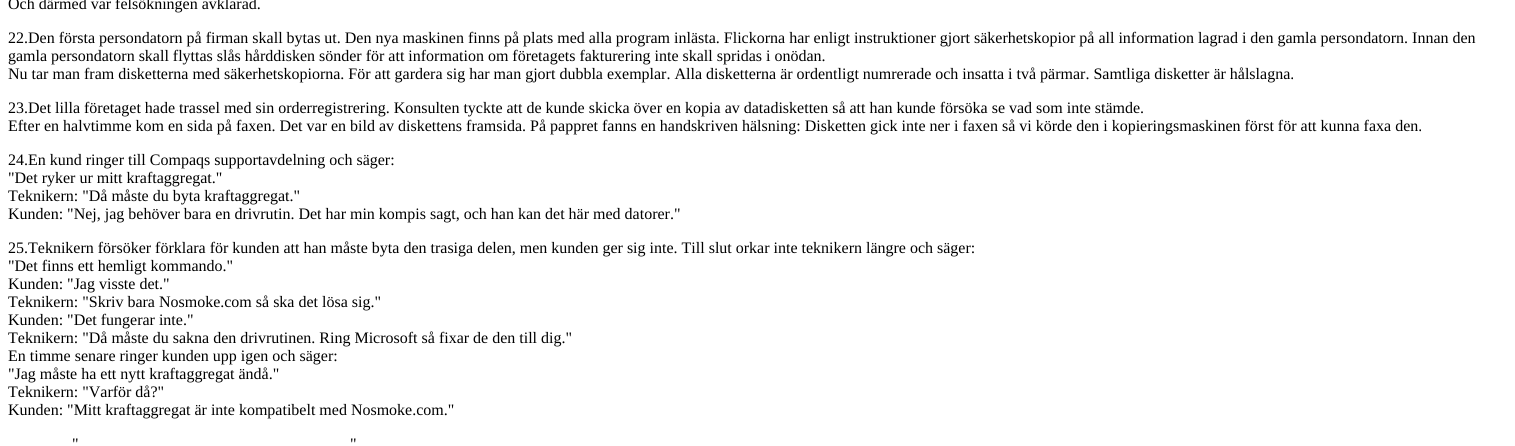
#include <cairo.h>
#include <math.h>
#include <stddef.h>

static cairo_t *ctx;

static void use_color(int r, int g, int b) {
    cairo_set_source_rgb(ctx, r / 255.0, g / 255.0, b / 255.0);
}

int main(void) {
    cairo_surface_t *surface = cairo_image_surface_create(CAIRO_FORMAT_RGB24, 1515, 446);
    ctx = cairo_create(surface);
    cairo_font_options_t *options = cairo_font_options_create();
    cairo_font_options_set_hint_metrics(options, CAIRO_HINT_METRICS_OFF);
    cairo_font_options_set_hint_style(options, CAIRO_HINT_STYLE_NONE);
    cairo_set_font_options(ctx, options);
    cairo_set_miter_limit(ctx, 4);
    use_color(255, 255, 255);
    cairo_paint(ctx);
    cairo_select_font_face(ctx, "Liberation Serif", CAIRO_FONT_SLANT_NORMAL, CAIRO_FONT_WEIGHT_NORMAL);
    cairo_set_font_size(ctx, 16);
    use_color(0, 0, 0);
    cairo_move_to(ctx, 8, 9);
    cairo_show_text(ctx, "Och därmed var felsökningen avklarad.");
    cairo_move_to(ctx, 8, 43);
    cairo_show_text(ctx, "22.Den första persondatorn på firman skall bytas ut. Den nya maskinen finns på plats med alla program inlästa. Flickorna har enligt instruktioner gjort säkerhetskopior på all information lagrad i den gamla persondatorn. Innan den");
    cairo_move_to(ctx, 8, 61);
    cairo_show_text(ctx, "gamla persondatorn skall flyttas slås hårddisken sönder för att information om företagets fakturering inte skall spridas i onödan.");
    cairo_move_to(ctx, 8, 79);
    cairo_show_text(ctx, "Nu tar man fram disketterna med säkerhetskopiorna. För att gardera sig har man gjort dubbla exemplar. Alla disketterna är ordentligt numrerade och insatta i två pärmar. Samtliga disketter är hålslagna.");
    cairo_move_to(ctx, 8, 113);
    cairo_show_text(ctx, "23.Det lilla företaget hade trassel med sin orderregistrering. Konsulten tyckte att de kunde skicka över en kopia av datadisketten så att han kunde försöka se vad som inte stämde.");
    cairo_move_to(ctx, 8, 131);
    cairo_show_text(ctx, "Efter en halvtimme kom en sida på faxen. Det var en bild av diskettens framsida. På pappret fanns en handskriven hälsning: Disketten gick inte ner i faxen så vi körde den i kopieringsmaskinen först för att kunna faxa den.");
    cairo_move_to(ctx, 8, 165);
    cairo_show_text(ctx, "24.En kund ringer till Compaqs supportavdelning och säger:");
    cairo_move_to(ctx, 8, 183);
    cairo_show_text(ctx, "\"Det ryker ur mitt kraftaggregat.\"");
    cairo_move_to(ctx, 8, 201);
    cairo_show_text(ctx, "Teknikern: \"Då måste du byta kraftaggregat.\"");
    cairo_move_to(ctx, 8, 219);
    cairo_show_text(ctx, "Kunden: \"Nej, jag behöver bara en drivrutin. Det har min kompis sagt, och han kan det här med datorer.\"");
    cairo_move_to(ctx, 8, 253);
    cairo_show_text(ctx, "25.Teknikern försöker förklara för kunden att han måste byta den trasiga delen, men kunden ger sig inte. Till slut orkar inte teknikern längre och säger:");
    cairo_move_to(ctx, 8, 271);
    cairo_show_text(ctx, "\"Det finns ett hemligt kommando.\"");
    cairo_move_to(ctx, 8, 289);
    cairo_show_text(ctx, "Kunden: \"Jag visste det.\"");
    cairo_move_to(ctx, 8, 307);
    cairo_show_text(ctx, "Teknikern: \"Skriv bara Nosmoke.com så ska det lösa sig.\"");
    cairo_move_to(ctx, 8, 325);
    cairo_show_text(ctx, "Kunden: \"Det fungerar inte.\"");
    cairo_move_to(ctx, 8, 343);
    cairo_show_text(ctx, "Teknikern: \"Då måste du sakna den drivrutinen. Ring Microsoft så fixar de den till dig.\"");
    cairo_move_to(ctx, 8, 361);
    cairo_show_text(ctx, "En timme senare ringer kunden upp igen och säger:");
    cairo_move_to(ctx, 8, 379);
    cairo_show_text(ctx, "\"Jag måste ha ett nytt kraftaggregat ändå.\"");
    cairo_move_to(ctx, 8, 397);
    cairo_show_text(ctx, "Teknikern: \"Varför då?\"");
    cairo_move_to(ctx, 8, 415);
    cairo_show_text(ctx, "Kunden: \"Mitt kraftaggregat är inte kompatibelt med Nosmoke.com.\"");
    cairo_move_to(ctx, 72, 449);
    cairo_show_text(ctx, "\"");
    cairo_move_to(ctx, 350, 449);
    cairo_show_text(ctx, "\"");
    cairo_surface_write_to_png(surface, "result.png");
    cairo_font_options_destroy(options);
    cairo_destroy(ctx);
    cairo_surface_destroy(surface);
    return 0;
}
